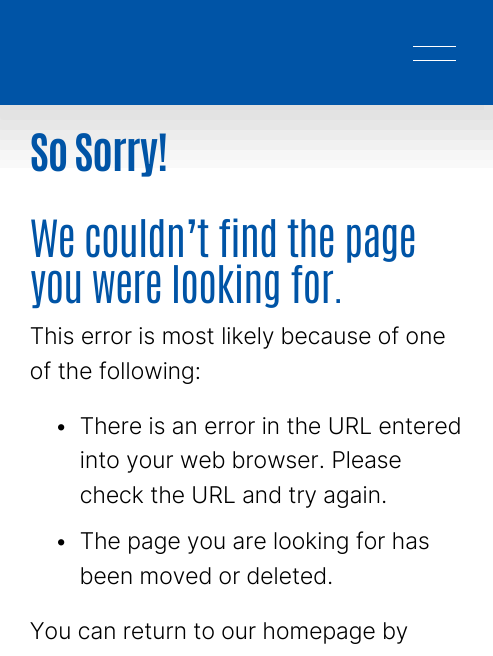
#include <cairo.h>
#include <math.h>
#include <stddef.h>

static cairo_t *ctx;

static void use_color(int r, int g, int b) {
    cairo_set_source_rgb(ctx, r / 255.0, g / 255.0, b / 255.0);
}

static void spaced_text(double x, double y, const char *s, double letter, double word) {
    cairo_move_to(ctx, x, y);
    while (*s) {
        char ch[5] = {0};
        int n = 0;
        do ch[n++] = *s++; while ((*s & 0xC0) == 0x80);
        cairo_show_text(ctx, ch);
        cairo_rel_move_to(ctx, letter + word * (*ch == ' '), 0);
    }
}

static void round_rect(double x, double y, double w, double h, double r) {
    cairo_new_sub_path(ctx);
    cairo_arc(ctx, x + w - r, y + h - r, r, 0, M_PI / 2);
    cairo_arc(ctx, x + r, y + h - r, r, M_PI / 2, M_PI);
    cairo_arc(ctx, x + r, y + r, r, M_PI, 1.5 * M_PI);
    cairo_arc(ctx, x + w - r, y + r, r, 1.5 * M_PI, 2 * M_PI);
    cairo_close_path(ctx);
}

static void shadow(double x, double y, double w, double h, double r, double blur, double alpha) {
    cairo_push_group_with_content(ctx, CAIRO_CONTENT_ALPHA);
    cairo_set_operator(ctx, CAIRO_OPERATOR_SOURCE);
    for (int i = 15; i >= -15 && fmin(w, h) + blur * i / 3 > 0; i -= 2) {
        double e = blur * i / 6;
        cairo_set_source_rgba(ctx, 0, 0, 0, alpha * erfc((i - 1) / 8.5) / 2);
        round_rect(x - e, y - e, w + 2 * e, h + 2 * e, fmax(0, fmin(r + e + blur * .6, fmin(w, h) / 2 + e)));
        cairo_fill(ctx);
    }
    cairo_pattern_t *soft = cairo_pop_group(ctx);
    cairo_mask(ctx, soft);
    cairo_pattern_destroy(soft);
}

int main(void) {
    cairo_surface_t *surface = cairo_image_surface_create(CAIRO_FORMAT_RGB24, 493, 656);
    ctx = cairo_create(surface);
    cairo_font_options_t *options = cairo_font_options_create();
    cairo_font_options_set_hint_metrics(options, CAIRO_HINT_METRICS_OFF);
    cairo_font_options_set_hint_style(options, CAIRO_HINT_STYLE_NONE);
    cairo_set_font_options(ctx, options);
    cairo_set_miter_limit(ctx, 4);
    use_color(255, 255, 255);
    cairo_paint(ctx);
    use_color(0, 84, 166);
    cairo_rectangle(ctx, 0, 0, 493, 105);
    cairo_fill(ctx);
    cairo_save(ctx);
    cairo_rectangle(ctx, 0, 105, 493, 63);
    cairo_clip(ctx);
    use_color(0, 0, 0);
    shadow(-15, 0, 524, 135, 0, 30, 0.15);
    cairo_restore(ctx);
    use_color(255, 255, 255);
    cairo_rectangle(ctx, 413, 46, 43, 1);
    cairo_fill(ctx);
    cairo_rectangle(ctx, 413, 60, 43, 1);
    cairo_fill(ctx);
    cairo_select_font_face(ctx, "Antonio", CAIRO_FONT_SLANT_NORMAL, CAIRO_FONT_WEIGHT_BOLD);
    cairo_set_font_size(ctx, 43.6);
    use_color(0, 84, 166);
    spaced_text(30, 171, "So Sorry!", -0.9, 0);
    cairo_select_font_face(ctx, "Antonio Light", CAIRO_FONT_SLANT_NORMAL, CAIRO_FONT_WEIGHT_NORMAL);
    spaced_text(30, 257, "We couldn’t find the page", -0.9, 0);
    spaced_text(30, 303, "you were looking for.", -0.9, 0);
    cairo_select_font_face(ctx, "Inter Tight Light", CAIRO_FONT_SLANT_NORMAL, CAIRO_FONT_WEIGHT_NORMAL);
    cairo_set_font_size(ctx, 23.1);
    use_color(0, 0, 0);
    spaced_text(30, 344, "This error is most likely because of one", 0.6, 0);
    spaced_text(30, 379, "of the following:", 0.6, 0);
    spaced_text(55, 434, "•", 0.6, 0);
    spaced_text(80, 434, "There is an error in the URL entered", 0.6, 0);
    spaced_text(80, 468, "into your web browser. Please", 0.6, 0);
    spaced_text(80, 503, "check the URL and try again.", 0.6, 0);
    spaced_text(55, 549, "•", 0.6, 0);
    spaced_text(80, 549, "The page you are looking for has", 0.6, 0);
    spaced_text(80, 584, "been moved or deleted.", 0.6, 0);
    spaced_text(30, 639, "You can return to our homepage by", 0.6, 0);
    cairo_surface_write_to_png(surface, "result.png");
    cairo_font_options_destroy(options);
    cairo_destroy(ctx);
    cairo_surface_destroy(surface);
    return 0;
}
